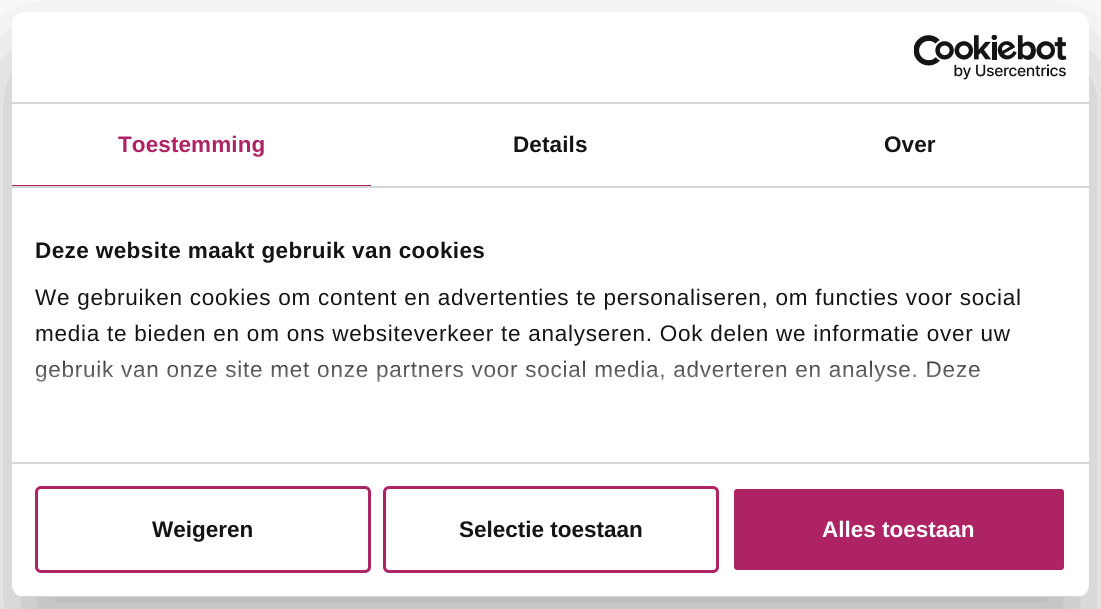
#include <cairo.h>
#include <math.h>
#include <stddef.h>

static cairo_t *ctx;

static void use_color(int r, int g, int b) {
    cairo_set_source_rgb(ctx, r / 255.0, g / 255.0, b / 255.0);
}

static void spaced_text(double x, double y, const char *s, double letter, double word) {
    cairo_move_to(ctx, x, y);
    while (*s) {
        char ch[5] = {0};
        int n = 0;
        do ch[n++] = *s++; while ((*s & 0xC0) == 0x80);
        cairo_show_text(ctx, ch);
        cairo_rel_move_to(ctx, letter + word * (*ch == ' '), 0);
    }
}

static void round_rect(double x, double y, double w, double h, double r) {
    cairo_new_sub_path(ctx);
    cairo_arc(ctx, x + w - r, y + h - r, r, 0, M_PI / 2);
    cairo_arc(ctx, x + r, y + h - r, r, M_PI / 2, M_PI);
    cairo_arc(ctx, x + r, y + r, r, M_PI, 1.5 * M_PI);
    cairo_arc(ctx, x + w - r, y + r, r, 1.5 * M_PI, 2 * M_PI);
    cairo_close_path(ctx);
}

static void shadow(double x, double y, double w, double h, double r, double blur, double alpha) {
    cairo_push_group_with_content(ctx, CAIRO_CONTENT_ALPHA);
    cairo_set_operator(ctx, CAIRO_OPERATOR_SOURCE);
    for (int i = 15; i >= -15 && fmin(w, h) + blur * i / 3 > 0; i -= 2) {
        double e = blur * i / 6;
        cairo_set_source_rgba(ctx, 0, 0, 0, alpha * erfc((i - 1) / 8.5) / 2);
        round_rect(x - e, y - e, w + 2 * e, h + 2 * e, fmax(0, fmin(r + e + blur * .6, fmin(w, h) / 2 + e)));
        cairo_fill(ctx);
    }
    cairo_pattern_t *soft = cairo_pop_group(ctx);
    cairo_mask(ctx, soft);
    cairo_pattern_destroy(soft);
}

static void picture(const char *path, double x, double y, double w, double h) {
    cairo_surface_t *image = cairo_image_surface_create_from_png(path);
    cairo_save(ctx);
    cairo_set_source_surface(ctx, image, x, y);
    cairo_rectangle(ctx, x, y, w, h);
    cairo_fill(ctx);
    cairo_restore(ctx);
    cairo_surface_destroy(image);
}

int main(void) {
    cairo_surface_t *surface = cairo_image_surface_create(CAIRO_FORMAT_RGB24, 1101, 609);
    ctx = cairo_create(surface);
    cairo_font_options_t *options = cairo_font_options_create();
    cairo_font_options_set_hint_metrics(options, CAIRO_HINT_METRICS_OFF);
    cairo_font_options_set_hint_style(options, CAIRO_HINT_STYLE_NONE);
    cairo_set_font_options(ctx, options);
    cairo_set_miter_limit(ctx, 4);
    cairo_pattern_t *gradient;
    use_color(255, 255, 255);
    cairo_paint(ctx);
    use_color(0, 0, 0);
    shadow(12, 60, 1077, 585, 12, 51, 0.3);
    use_color(255, 255, 255);
    round_rect(12, 12, 1077, 585, 12);
    cairo_fill(ctx);
    use_color(214, 214, 214);
    cairo_rectangle(ctx, 12, 102, 1077, 2);
    cairo_fill(ctx);
    picture("img1.png", 914, 35, 153, 45);
    cairo_rectangle(ctx, 12, 186, 1077, 2);
    cairo_fill(ctx);
    use_color(173, 35, 99);
    cairo_rectangle(ctx, 12, 185, 359, 1);
    cairo_fill(ctx);
    cairo_select_font_face(ctx, "Liberation Sans", CAIRO_FONT_SLANT_NORMAL, CAIRO_FONT_WEIGHT_BOLD);
    cairo_set_font_size(ctx, 22.5);
    spaced_text(118, 152, "Toestemming", 0.1, 0);
    use_color(20, 20, 20);
    spaced_text(513, 152, "Details", 0.1, 0);
    spaced_text(884, 152, "Over", 0.1, 0);
    use_color(214, 214, 214);
    cairo_rectangle(ctx, 12, 462, 1077, 2);
    cairo_fill(ctx);
    use_color(20, 20, 20);
    spaced_text(35, 258, "Deze website maakt gebruik van cookies", 0.4, 0);
    cairo_select_font_face(ctx, "Liberation Sans", CAIRO_FONT_SLANT_NORMAL, CAIRO_FONT_WEIGHT_NORMAL);
    spaced_text(35, 305, "We gebruiken cookies om content en advertenties te personaliseren, om functies voor social", 0.75, 0);
    spaced_text(35, 341, "media te bieden en om ons websiteverkeer te analyseren. Ook delen we informatie over uw", 0.75, 0);
    spaced_text(35, 377, "gebruik van onze site met onze partners voor social media, adverteren en analyse. Deze", 0.75, 0);
    gradient = cairo_pattern_create_linear(541, 462, 541, 350);
    cairo_pattern_add_color_stop_rgba(gradient, 0, 1, 1, 1, 1);
    cairo_pattern_add_color_stop_rgba(gradient, 0.5, 1, 1, 1, 0.8);
    cairo_pattern_add_color_stop_rgba(gradient, 1, 1, 1, 1, 0);
    cairo_set_source(ctx, gradient);
    cairo_pattern_destroy(gradient);
    cairo_rectangle(ctx, 35, 360, 944, 22);
    cairo_fill(ctx);
    use_color(229, 229, 229);
    cairo_rectangle(ctx, 12, 462, 1, 2);
    cairo_fill(ctx);
    cairo_save(ctx);
    round_rect(12, 12, 1077, 585, 12);
    cairo_clip(ctx);
    use_color(214, 214, 214);
    cairo_rectangle(ctx, 12, 596, 1077, 1);
    cairo_fill(ctx);
    cairo_restore(ctx);
    round_rect(36.5, 487.5, 333, 84, 4.5);
    use_color(173, 35, 99);
    cairo_set_line_width(ctx, 3);
    cairo_stroke(ctx);
    cairo_select_font_face(ctx, "Liberation Sans", CAIRO_FONT_SLANT_NORMAL, CAIRO_FONT_WEIGHT_BOLD);
    use_color(20, 20, 20);
    cairo_move_to(ctx, 152, 537);
    cairo_show_text(ctx, "Weigeren");
    round_rect(384.5, 487.5, 333, 84, 4.5);
    use_color(173, 35, 99);
    cairo_stroke(ctx);
    use_color(20, 20, 20);
    cairo_move_to(ctx, 459, 537);
    cairo_show_text(ctx, "Selectie toestaan");
    use_color(173, 35, 99);
    round_rect(732.5, 487.5, 333, 84, 4.5);
    cairo_fill_preserve(ctx);
    use_color(255, 255, 255);
    cairo_stroke(ctx);
    cairo_move_to(ctx, 822, 537);
    cairo_show_text(ctx, "Alles toestaan");
    cairo_surface_write_to_png(surface, "result.png");
    cairo_font_options_destroy(options);
    cairo_destroy(ctx);
    cairo_surface_destroy(surface);
    return 0;
}
